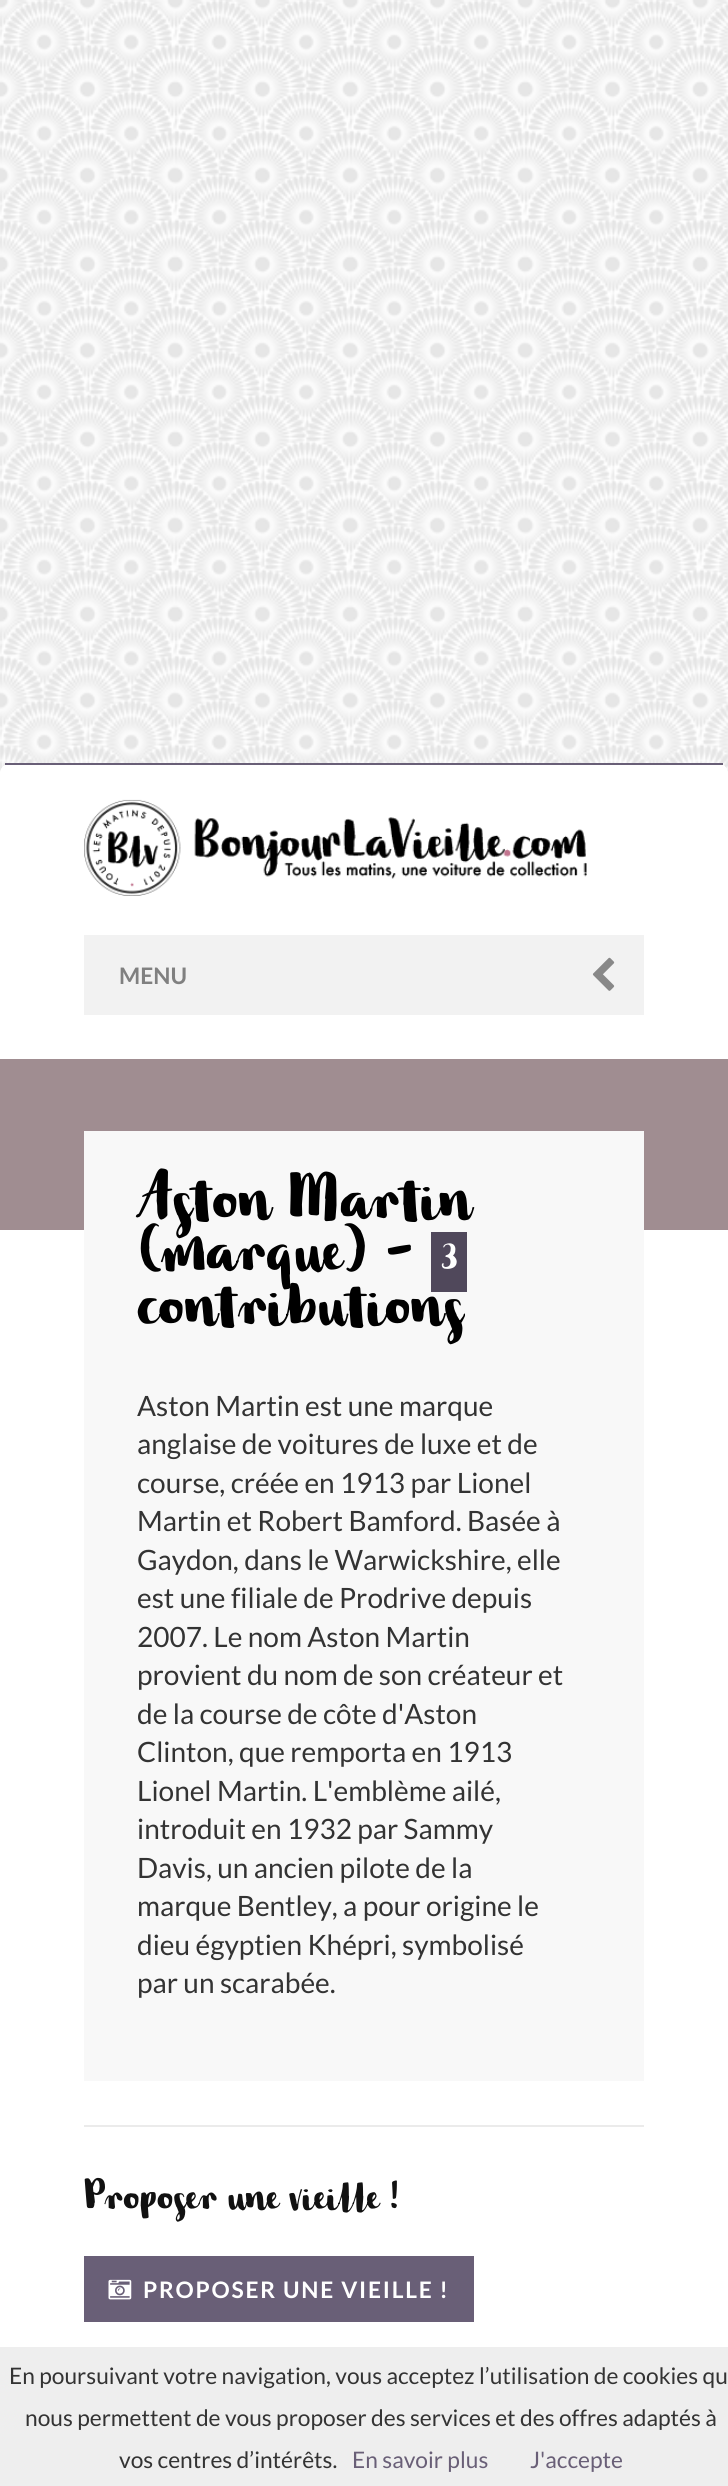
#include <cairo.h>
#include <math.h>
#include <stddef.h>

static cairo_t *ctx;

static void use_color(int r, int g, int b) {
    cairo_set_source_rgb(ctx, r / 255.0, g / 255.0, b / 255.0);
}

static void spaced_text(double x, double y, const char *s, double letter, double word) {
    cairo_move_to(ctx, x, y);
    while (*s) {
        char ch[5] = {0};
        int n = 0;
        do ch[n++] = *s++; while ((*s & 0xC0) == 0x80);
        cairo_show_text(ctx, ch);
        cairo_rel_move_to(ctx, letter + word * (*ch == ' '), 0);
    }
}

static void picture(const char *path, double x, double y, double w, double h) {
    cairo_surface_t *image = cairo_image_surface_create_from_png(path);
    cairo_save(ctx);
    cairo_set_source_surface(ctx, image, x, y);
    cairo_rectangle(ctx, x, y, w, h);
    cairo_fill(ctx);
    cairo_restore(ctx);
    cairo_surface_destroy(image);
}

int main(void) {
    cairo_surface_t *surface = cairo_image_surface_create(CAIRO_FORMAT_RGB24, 728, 2486);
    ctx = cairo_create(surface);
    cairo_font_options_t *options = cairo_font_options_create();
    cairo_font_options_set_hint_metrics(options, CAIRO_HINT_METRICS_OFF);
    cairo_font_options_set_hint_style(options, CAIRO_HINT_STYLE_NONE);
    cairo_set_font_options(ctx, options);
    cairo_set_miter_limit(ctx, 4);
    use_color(255, 255, 255);
    cairo_paint(ctx);
    picture("img1.png", 0, 0, 728, 774);
    use_color(255, 255, 255);
    cairo_new_path(ctx);
    cairo_move_to(ctx, 11, 763);
    cairo_line_to(ctx, 717, 763);
    cairo_curve_to(ctx, 723, 763, 728, 768, 728, 774);
    cairo_line_to(ctx, 728, 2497);
    cairo_line_to(ctx, 0, 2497);
    cairo_line_to(ctx, 0, 774);
    cairo_curve_to(ctx, 0, 768, 5, 763, 11, 763);
    cairo_close_path(ctx);
    cairo_fill(ctx);
    cairo_new_path(ctx);
    cairo_move_to(ctx, 11, 763);
    cairo_line_to(ctx, 717, 763);
    cairo_curve_to(ctx, 723, 763, 728, 768, 728, 774);
    cairo_line_to(ctx, 728, 1059);
    cairo_line_to(ctx, 0, 1059);
    cairo_line_to(ctx, 0, 774);
    cairo_curve_to(ctx, 0, 768, 5, 763, 11, 763);
    cairo_close_path(ctx);
    cairo_fill(ctx);
    use_color(105, 95, 119);
    cairo_rectangle(ctx, 5, 763, 718, 2);
    cairo_fill(ctx);
    picture("img2.png", 84, 799, 503, 97);
    use_color(242, 242, 242);
    cairo_rectangle(ctx, 84, 935, 560, 80);
    cairo_fill(ctx);
    cairo_select_font_face(ctx, "Lato", CAIRO_FONT_SLANT_NORMAL, CAIRO_FONT_WEIGHT_BOLD);
    cairo_set_font_size(ctx, 22.75);
    use_color(128, 128, 128);
    cairo_move_to(ctx, 119, 984);
    cairo_show_text(ctx, "MENU");
    picture("img3.png", 592, 957, 23, 34);
    use_color(160, 141, 145);
    cairo_rectangle(ctx, 0, 1059, 728, 171);
    cairo_fill(ctx);
    use_color(248, 248, 248);
    cairo_rectangle(ctx, 84, 1131, 560, 950);
    cairo_fill(ctx);
    cairo_select_font_face(ctx, "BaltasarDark", CAIRO_FONT_SLANT_NORMAL, CAIRO_FONT_WEIGHT_NORMAL);
    cairo_set_font_size(ctx, 52.5);
    use_color(0, 0, 0);
    cairo_move_to(ctx, 137, 1215);
    cairo_show_text(ctx, "Aston Martin");
    cairo_move_to(ctx, 137, 1267);
    cairo_show_text(ctx, "(marque) -");
    use_color(80, 72, 91);
    cairo_rectangle(ctx, 431, 1232, 36, 60);
    cairo_fill(ctx);
    cairo_set_font_size(ctx, 32);
    use_color(255, 255, 255);
    cairo_move_to(ctx, 441, 1267);
    cairo_show_text(ctx, "3");
    cairo_set_font_size(ctx, 52.5);
    use_color(0, 0, 0);
    cairo_move_to(ctx, 137, 1321);
    cairo_show_text(ctx, "contributions");
    cairo_select_font_face(ctx, "Lato", CAIRO_FONT_SLANT_NORMAL, CAIRO_FONT_WEIGHT_NORMAL);
    cairo_set_font_size(ctx, 28);
    use_color(51, 51, 51);
    cairo_move_to(ctx, 137, 1416);
    cairo_show_text(ctx, "Aston Martin est une marque");
    cairo_move_to(ctx, 137, 1454);
    cairo_show_text(ctx, "anglaise de voitures de luxe et de");
    cairo_move_to(ctx, 137, 1493);
    cairo_show_text(ctx, "course, créée en 1913 par Lionel");
    cairo_move_to(ctx, 137, 1531);
    cairo_show_text(ctx, "Martin et Robert Bamford. Basée à");
    cairo_move_to(ctx, 137, 1570);
    cairo_show_text(ctx, "Gaydon, dans le Warwickshire, elle");
    cairo_move_to(ctx, 137, 1608);
    cairo_show_text(ctx, "est une filiale de Prodrive depuis");
    cairo_move_to(ctx, 137, 1647);
    cairo_show_text(ctx, "2007. Le nom Aston Martin");
    cairo_move_to(ctx, 137, 1685);
    cairo_show_text(ctx, "provient du nom de son créateur et");
    cairo_move_to(ctx, 137, 1724);
    cairo_show_text(ctx, "de la course de côte d'Aston");
    cairo_move_to(ctx, 137, 1762);
    cairo_show_text(ctx, "Clinton, que remporta en 1913");
    cairo_move_to(ctx, 137, 1801);
    cairo_show_text(ctx, "Lionel Martin. L'emblème ailé,");
    cairo_move_to(ctx, 137, 1839);
    cairo_show_text(ctx, "introduit en 1932 par Sammy");
    cairo_move_to(ctx, 137, 1878);
    cairo_show_text(ctx, "Davis, un ancien pilote de la");
    cairo_move_to(ctx, 137, 1916);
    cairo_show_text(ctx, "marque Bentley, a pour origine le");
    cairo_move_to(ctx, 137, 1955);
    cairo_show_text(ctx, "dieu égyptien Khépri, symbolisé");
    cairo_move_to(ctx, 137, 1993);
    cairo_show_text(ctx, "par un scarabée.");
    use_color(235, 235, 235);
    cairo_rectangle(ctx, 84, 2125, 560, 2);
    cairo_fill(ctx);
    cairo_select_font_face(ctx, "BaltasarDark", CAIRO_FONT_SLANT_NORMAL, CAIRO_FONT_WEIGHT_NORMAL);
    cairo_set_font_size(ctx, 33.25);
    use_color(17, 17, 17);
    cairo_move_to(ctx, 84, 2207);
    cairo_show_text(ctx, "Proposer une vieille !");
    use_color(105, 95, 119);
    cairo_rectangle(ctx, 84, 2256, 390, 66);
    cairo_fill(ctx);
    picture("img4.png", 108, 2279, 24, 21);
    cairo_select_font_face(ctx, "Lato", CAIRO_FONT_SLANT_NORMAL, CAIRO_FONT_WEIGHT_BOLD);
    cairo_set_font_size(ctx, 22.75);
    use_color(255, 255, 255);
    spaced_text(143, 2298, "PROPOSER UNE VIEILLE !", 1.75, 0);
    use_color(238, 238, 238);
    cairo_rectangle(ctx, 0, 2347, 728, 139);
    cairo_fill(ctx);
    cairo_select_font_face(ctx, "Lato", CAIRO_FONT_SLANT_NORMAL, CAIRO_FONT_WEIGHT_NORMAL);
    use_color(51, 51, 51);
    cairo_move_to(ctx, 9, 2384);
    cairo_show_text(ctx, "En poursuivant votre navigation, vous acceptez l’utilisation de cookies qu");
    cairo_move_to(ctx, 25, 2426);
    cairo_show_text(ctx, "nous permettent de vous proposer des services et des offres adaptés à");
    cairo_move_to(ctx, 119, 2468);
    cairo_show_text(ctx, "vos centres d’intérêts.");
    use_color(105, 95, 119);
    cairo_move_to(ctx, 352, 2468);
    cairo_show_text(ctx, "En savoir plus");
    cairo_move_to(ctx, 530, 2468);
    cairo_show_text(ctx, "J'accepte");
    cairo_surface_write_to_png(surface, "result.png");
    cairo_font_options_destroy(options);
    cairo_destroy(ctx);
    cairo_surface_destroy(surface);
    return 0;
}
